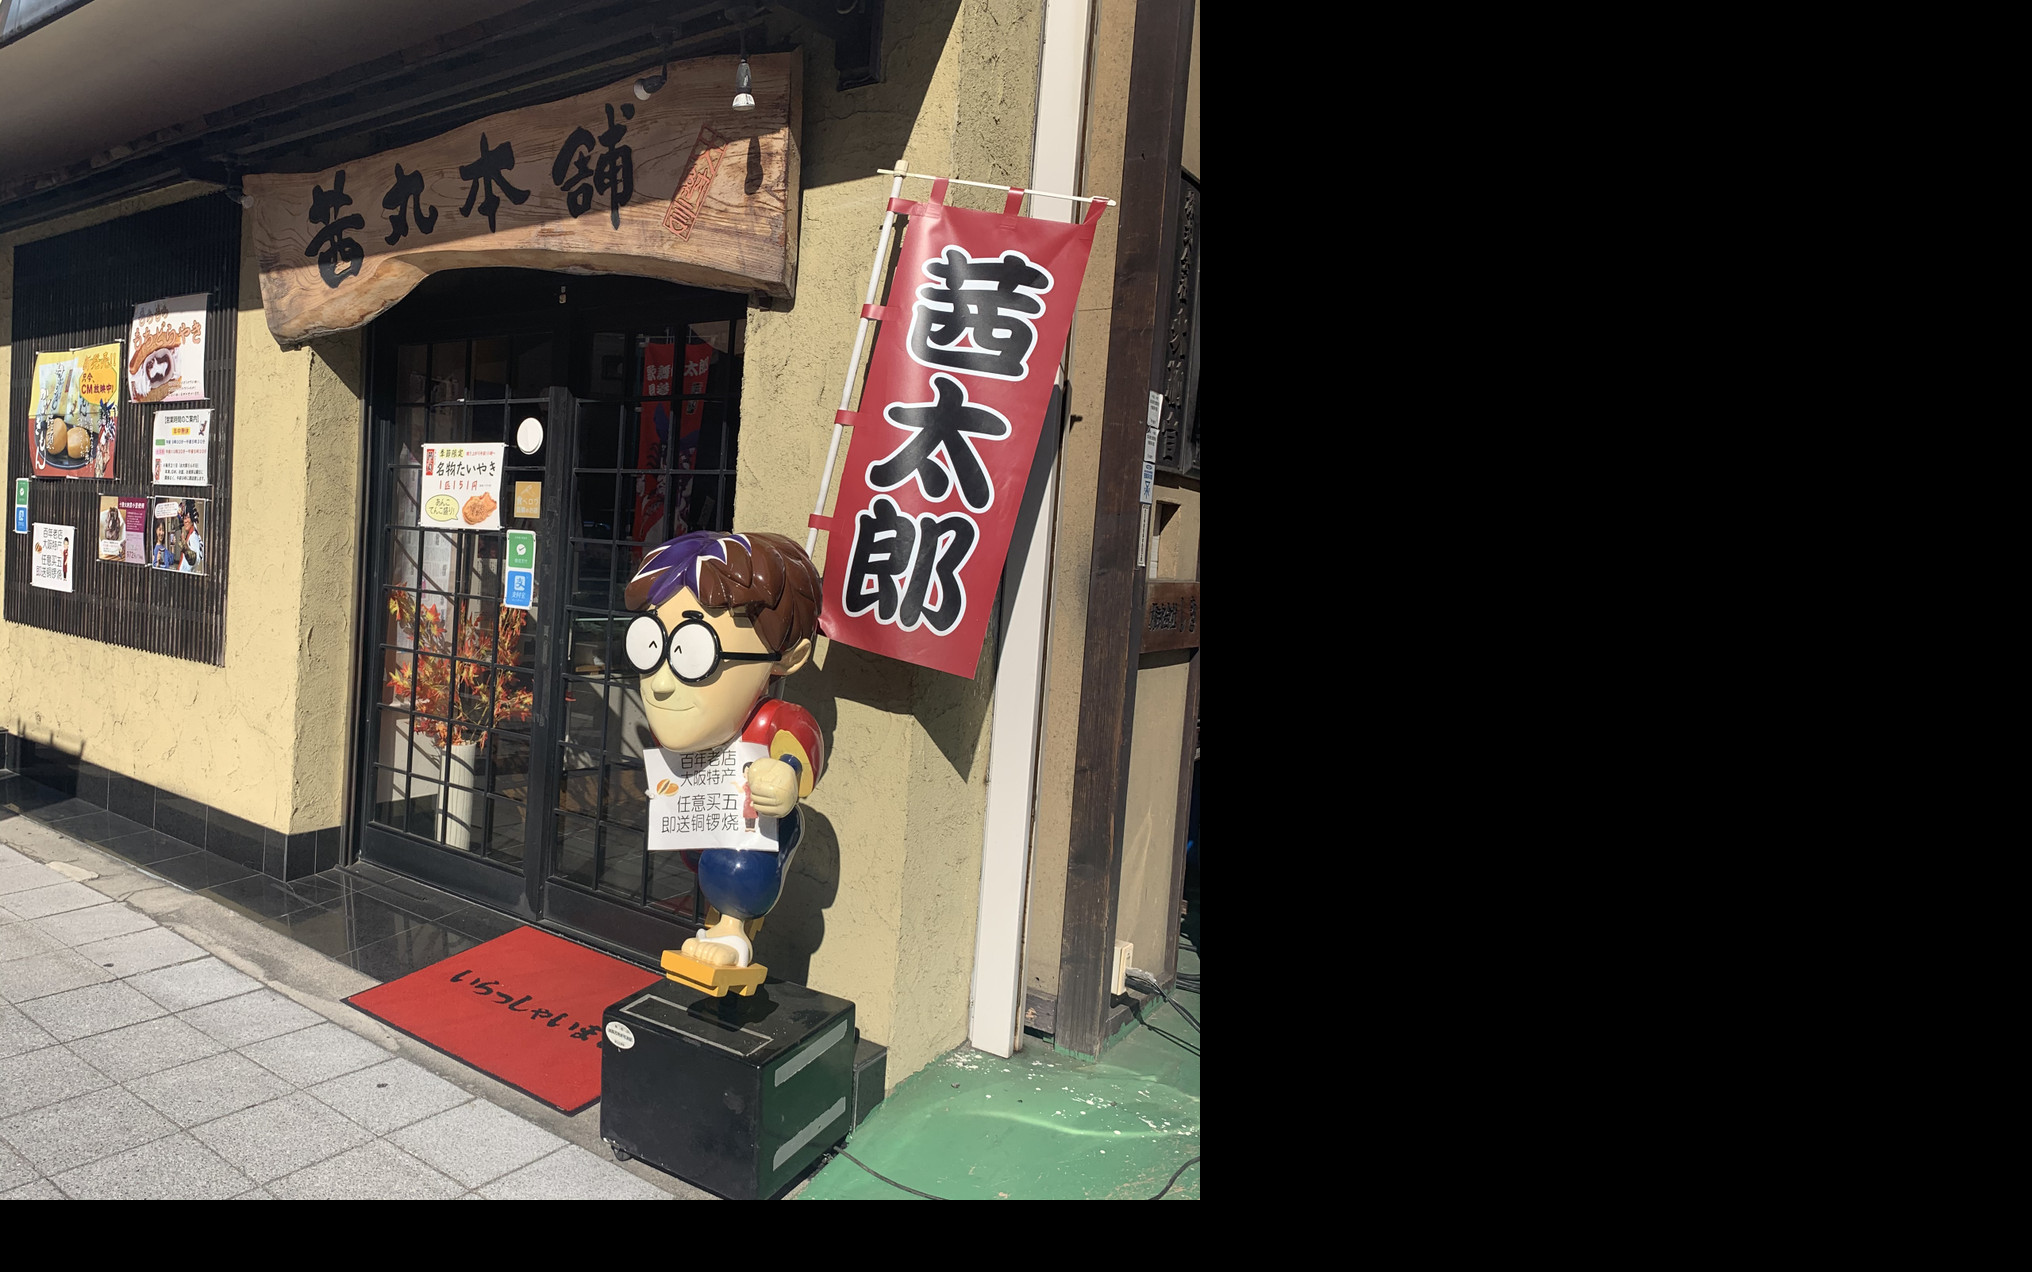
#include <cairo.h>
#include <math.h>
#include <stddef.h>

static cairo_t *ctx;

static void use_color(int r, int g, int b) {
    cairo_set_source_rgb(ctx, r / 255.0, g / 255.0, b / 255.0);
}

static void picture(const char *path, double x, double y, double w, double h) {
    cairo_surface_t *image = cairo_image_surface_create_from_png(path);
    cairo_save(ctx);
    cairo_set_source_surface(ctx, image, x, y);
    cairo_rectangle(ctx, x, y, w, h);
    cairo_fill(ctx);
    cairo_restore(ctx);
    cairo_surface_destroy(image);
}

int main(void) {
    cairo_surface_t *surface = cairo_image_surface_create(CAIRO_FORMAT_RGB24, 2032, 1272);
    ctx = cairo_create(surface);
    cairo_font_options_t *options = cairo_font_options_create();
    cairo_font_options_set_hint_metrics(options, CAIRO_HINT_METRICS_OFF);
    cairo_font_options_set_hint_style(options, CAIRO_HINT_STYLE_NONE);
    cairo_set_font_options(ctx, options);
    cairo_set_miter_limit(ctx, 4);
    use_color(0, 0, 0);
    cairo_paint(ctx);
    picture("img1.png", 0, 0, 1200, 1200);
    cairo_surface_write_to_png(surface, "result.png");
    cairo_font_options_destroy(options);
    cairo_destroy(ctx);
    cairo_surface_destroy(surface);
    return 0;
}
